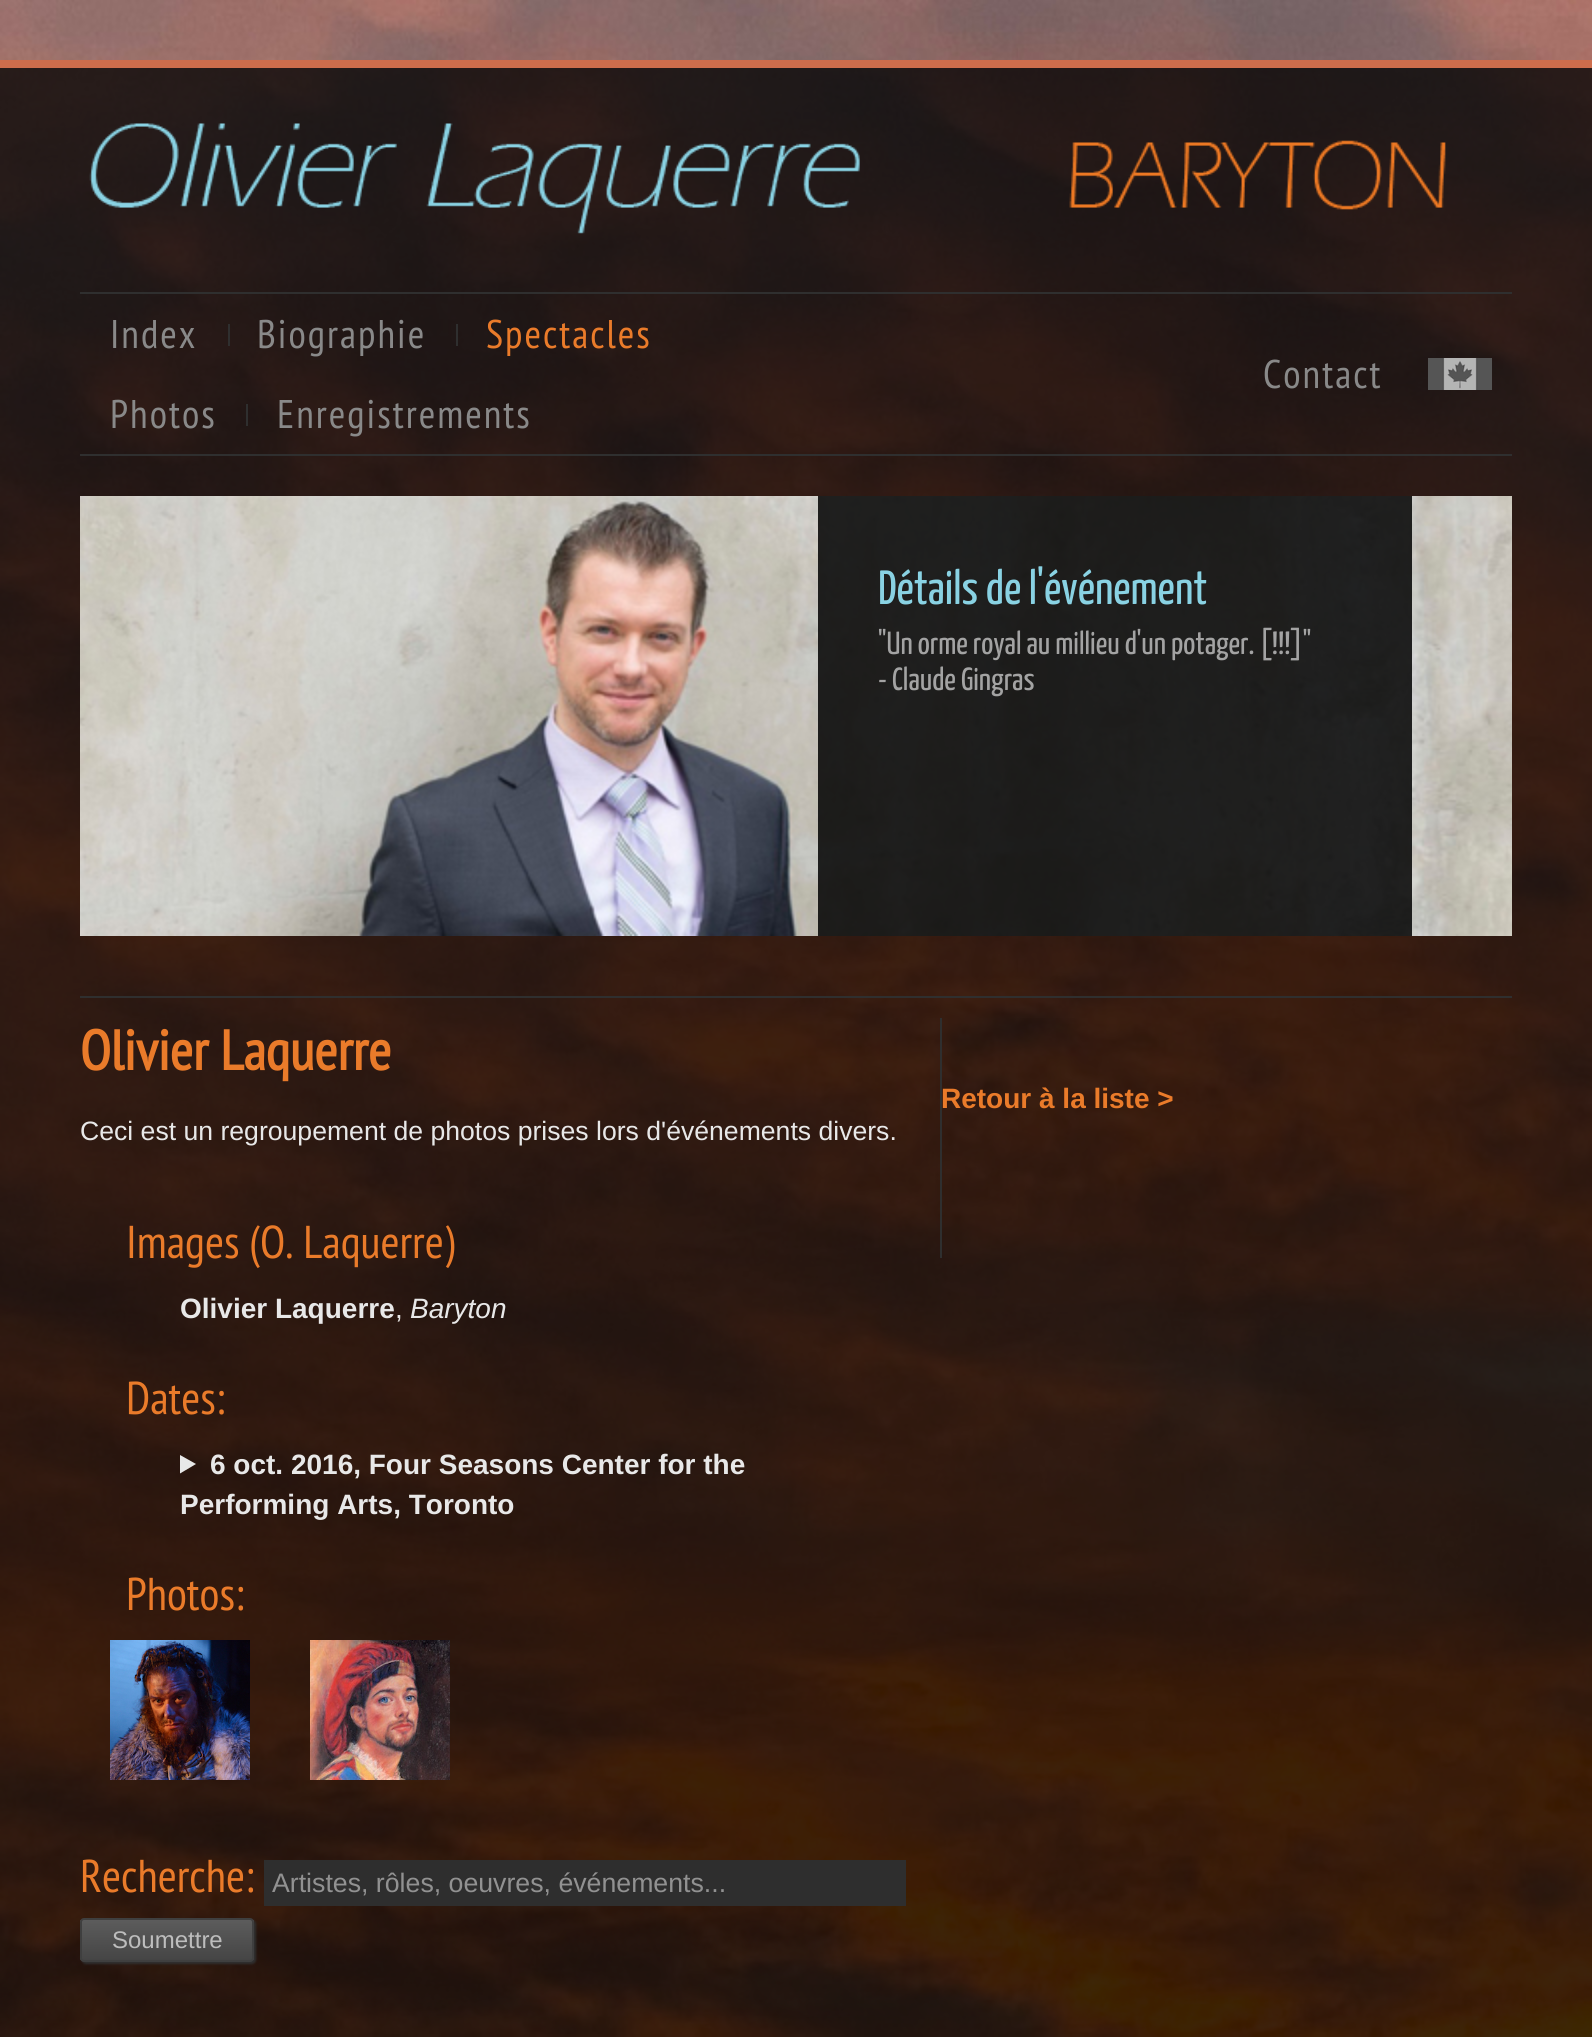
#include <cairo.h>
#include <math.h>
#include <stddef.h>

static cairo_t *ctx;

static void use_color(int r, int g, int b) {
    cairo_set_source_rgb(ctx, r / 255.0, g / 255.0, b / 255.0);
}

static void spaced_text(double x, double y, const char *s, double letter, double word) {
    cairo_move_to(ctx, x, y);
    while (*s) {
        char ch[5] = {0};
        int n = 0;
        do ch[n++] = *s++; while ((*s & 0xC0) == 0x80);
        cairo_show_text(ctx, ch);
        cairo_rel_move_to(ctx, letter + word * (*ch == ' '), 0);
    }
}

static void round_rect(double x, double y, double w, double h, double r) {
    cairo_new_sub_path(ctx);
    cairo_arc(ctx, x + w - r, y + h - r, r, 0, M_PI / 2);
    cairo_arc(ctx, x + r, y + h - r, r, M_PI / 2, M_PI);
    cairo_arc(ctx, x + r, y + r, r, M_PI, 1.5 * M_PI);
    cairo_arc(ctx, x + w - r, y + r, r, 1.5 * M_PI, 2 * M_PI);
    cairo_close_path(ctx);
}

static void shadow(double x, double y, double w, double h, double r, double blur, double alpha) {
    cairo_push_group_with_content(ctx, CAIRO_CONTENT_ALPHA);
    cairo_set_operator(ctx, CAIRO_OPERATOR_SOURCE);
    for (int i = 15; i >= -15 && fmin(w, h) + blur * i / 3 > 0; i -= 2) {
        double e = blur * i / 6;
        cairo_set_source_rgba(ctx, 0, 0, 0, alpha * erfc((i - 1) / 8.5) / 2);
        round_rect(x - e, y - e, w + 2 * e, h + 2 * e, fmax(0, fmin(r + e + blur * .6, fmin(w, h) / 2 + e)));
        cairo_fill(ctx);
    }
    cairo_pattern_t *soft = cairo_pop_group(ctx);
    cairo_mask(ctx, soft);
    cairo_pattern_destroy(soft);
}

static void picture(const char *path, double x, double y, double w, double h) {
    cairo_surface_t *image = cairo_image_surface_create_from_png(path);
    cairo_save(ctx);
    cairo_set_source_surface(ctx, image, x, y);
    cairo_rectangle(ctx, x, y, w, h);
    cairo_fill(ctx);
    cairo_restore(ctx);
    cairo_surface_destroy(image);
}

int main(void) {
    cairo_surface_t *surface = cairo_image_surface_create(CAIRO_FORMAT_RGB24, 1592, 2037);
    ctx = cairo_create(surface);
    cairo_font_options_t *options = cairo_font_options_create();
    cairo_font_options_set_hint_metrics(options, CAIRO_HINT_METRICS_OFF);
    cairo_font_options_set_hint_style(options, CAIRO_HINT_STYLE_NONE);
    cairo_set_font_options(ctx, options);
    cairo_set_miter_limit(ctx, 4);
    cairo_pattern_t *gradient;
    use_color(255, 255, 255);
    cairo_paint(ctx);
    picture("img1.png", 0, 0, 1592, 2037);
    use_color(205, 109, 76);
    cairo_rectangle(ctx, 0, 60, 1592, 8);
    cairo_fill(ctx);
    picture("img2.png", 89, 123, 1357, 111);
    use_color(47, 47, 47);
    cairo_rectangle(ctx, 80, 292, 1432, 2);
    cairo_fill(ctx);
    cairo_rectangle(ctx, 80, 454, 1432, 2);
    cairo_fill(ctx);
    cairo_select_font_face(ctx, "PT Sans Narrow", CAIRO_FONT_SLANT_NORMAL, CAIRO_FONT_WEIGHT_NORMAL);
    cairo_set_font_size(ctx, 40);
    use_color(137, 137, 137);
    spaced_text(110, 348, "Index", 2, 0);
    use_color(47, 47, 47);
    cairo_rectangle(ctx, 228, 324, 2, 22);
    cairo_fill(ctx);
    use_color(137, 137, 137);
    spaced_text(257, 348, "Biographie", 2, 0);
    use_color(47, 47, 47);
    cairo_rectangle(ctx, 456, 324, 2, 22);
    cairo_fill(ctx);
    use_color(234, 123, 42);
    spaced_text(486, 348, "Spectacles", 2, 0);
    use_color(137, 137, 137);
    spaced_text(1263, 388, "Contact", 2, 0);
    spaced_text(110, 428, "Photos", 2, 0);
    use_color(47, 47, 47);
    cairo_rectangle(ctx, 246, 404, 2, 22);
    cairo_fill(ctx);
    use_color(137, 137, 137);
    spaced_text(277, 428, "Enregistrements", 2, 0);
    picture("img3.png", 1428, 358, 64, 32);
    picture("img4.png", 80, 496, 1432, 440);
    cairo_set_source_rgba(ctx, 0, 0, 0, 0.85);
    cairo_rectangle(ctx, 818, 496, 594, 440);
    cairo_fill(ctx);
    cairo_select_font_face(ctx, "Yanone Kaffeesatz", CAIRO_FONT_SLANT_NORMAL, CAIRO_FONT_WEIGHT_NORMAL);
    cairo_set_font_size(ctx, 48);
    use_color(137, 210, 227);
    cairo_move_to(ctx, 878, 604);
    cairo_show_text(ctx, "Détails de l'événement");
    cairo_set_font_size(ctx, 32);
    use_color(163, 163, 163);
    cairo_move_to(ctx, 878, 654);
    cairo_show_text(ctx, "\"Un orme royal au millieu d'un potager. [!!!]\"");
    cairo_move_to(ctx, 878, 690);
    cairo_show_text(ctx, "- Claude Gingras");
    use_color(47, 47, 47);
    cairo_rectangle(ctx, 80, 996, 1432, 2);
    cairo_fill(ctx);
    cairo_select_font_face(ctx, "PT Sans Narrow", CAIRO_FONT_SLANT_NORMAL, CAIRO_FONT_WEIGHT_BOLD);
    cairo_set_font_size(ctx, 56);
    use_color(234, 123, 42);
    cairo_move_to(ctx, 80, 1070);
    cairo_show_text(ctx, "Olivier Laquerre");
    cairo_select_font_face(ctx, "Liberation Sans", CAIRO_FONT_SLANT_NORMAL, CAIRO_FONT_WEIGHT_NORMAL);
    cairo_set_font_size(ctx, 26.6);
    use_color(232, 232, 232);
    cairo_move_to(ctx, 80, 1140);
    cairo_show_text(ctx, "Ceci est un regroupement de photos prises lors d'événements divers.");
    cairo_select_font_face(ctx, "PT Sans Narrow", CAIRO_FONT_SLANT_NORMAL, CAIRO_FONT_WEIGHT_NORMAL);
    cairo_set_font_size(ctx, 46);
    use_color(234, 123, 42);
    cairo_move_to(ctx, 126, 1258);
    cairo_show_text(ctx, "Images (O. Laquerre)");
    cairo_select_font_face(ctx, "Liberation Sans", CAIRO_FONT_SLANT_NORMAL, CAIRO_FONT_WEIGHT_BOLD);
    cairo_set_font_size(ctx, 28);
    use_color(232, 232, 232);
    cairo_move_to(ctx, 180, 1318);
    cairo_show_text(ctx, "Olivier Laquerre");
    cairo_select_font_face(ctx, "Liberation Sans", CAIRO_FONT_SLANT_NORMAL, CAIRO_FONT_WEIGHT_NORMAL);
    cairo_move_to(ctx, 395, 1318);
    cairo_show_text(ctx, ",");
    cairo_select_font_face(ctx, "Liberation Sans", CAIRO_FONT_SLANT_ITALIC, CAIRO_FONT_WEIGHT_NORMAL);
    cairo_move_to(ctx, 410, 1318);
    cairo_show_text(ctx, "Baryton");
    cairo_select_font_face(ctx, "PT Sans Narrow", CAIRO_FONT_SLANT_NORMAL, CAIRO_FONT_WEIGHT_NORMAL);
    cairo_set_font_size(ctx, 46);
    use_color(234, 123, 42);
    cairo_move_to(ctx, 126, 1414);
    cairo_show_text(ctx, "Dates:");
    use_color(232, 232, 232);
    cairo_new_path(ctx);
    cairo_move_to(ctx, 180, 1455);
    cairo_line_to(ctx, 196, 1464);
    cairo_line_to(ctx, 180, 1473.5);
    cairo_close_path(ctx);
    cairo_fill(ctx);
    cairo_select_font_face(ctx, "Liberation Sans", CAIRO_FONT_SLANT_NORMAL, CAIRO_FONT_WEIGHT_BOLD);
    cairo_set_font_size(ctx, 28);
    cairo_move_to(ctx, 210, 1474);
    cairo_show_text(ctx, "6 oct. 2016, Four Seasons Center for the");
    cairo_move_to(ctx, 180, 1514);
    cairo_show_text(ctx, "Performing Arts, Toronto");
    cairo_select_font_face(ctx, "PT Sans Narrow", CAIRO_FONT_SLANT_NORMAL, CAIRO_FONT_WEIGHT_NORMAL);
    cairo_set_font_size(ctx, 46);
    use_color(234, 123, 42);
    cairo_move_to(ctx, 126, 1610);
    cairo_show_text(ctx, "Photos:");
    picture("img5.png", 110, 1640, 140, 140);
    picture("img6.png", 310, 1640, 140, 140);
    cairo_move_to(ctx, 80, 1892);
    cairo_show_text(ctx, "Recherche:");
    use_color(46, 46, 46);
    cairo_rectangle(ctx, 264, 1860, 642, 46);
    cairo_fill(ctx);
    cairo_select_font_face(ctx, "Liberation Sans", CAIRO_FONT_SLANT_NORMAL, CAIRO_FONT_WEIGHT_NORMAL);
    cairo_set_font_size(ctx, 26.7);
    use_color(145, 145, 145);
    cairo_move_to(ctx, 272, 1892);
    cairo_show_text(ctx, "Artistes, rôles, oeuvres, événements...");
    use_color(47, 47, 47);
    shadow(82, 1920, 174, 44, 4, 1, 1);
    cairo_save(ctx);
    round_rect(80, 1918, 174, 44, 4);
    cairo_clip(ctx);
    gradient = cairo_pattern_create_linear(82, 1920, 82, 1960);
    cairo_pattern_add_color_stop_rgba(gradient, 0, 0.361, 0.361, 0.361, 1);
    cairo_pattern_add_color_stop_rgba(gradient, 1, 0.271, 0.271, 0.271, 1);
    cairo_set_source(ctx, gradient);
    cairo_pattern_destroy(gradient);
    cairo_rectangle(ctx, 80, 1920, 174, 40);
    cairo_fill(ctx);
    cairo_restore(ctx);
    round_rect(81, 1919, 172, 42, 3);
    use_color(63, 63, 63);
    cairo_stroke(ctx);
    cairo_set_font_size(ctx, 24);
    use_color(189, 189, 189);
    cairo_move_to(ctx, 112, 1948);
    cairo_show_text(ctx, "Soumettre");
    use_color(47, 47, 47);
    cairo_rectangle(ctx, 940, 1018, 2, 240);
    cairo_fill(ctx);
    cairo_select_font_face(ctx, "Liberation Sans", CAIRO_FONT_SLANT_NORMAL, CAIRO_FONT_WEIGHT_BOLD);
    cairo_set_font_size(ctx, 28);
    use_color(234, 123, 42);
    cairo_move_to(ctx, 941, 1108);
    cairo_show_text(ctx, "Retour à la liste >");
    cairo_surface_write_to_png(surface, "result.png");
    cairo_font_options_destroy(options);
    cairo_destroy(ctx);
    cairo_surface_destroy(surface);
    return 0;
}
